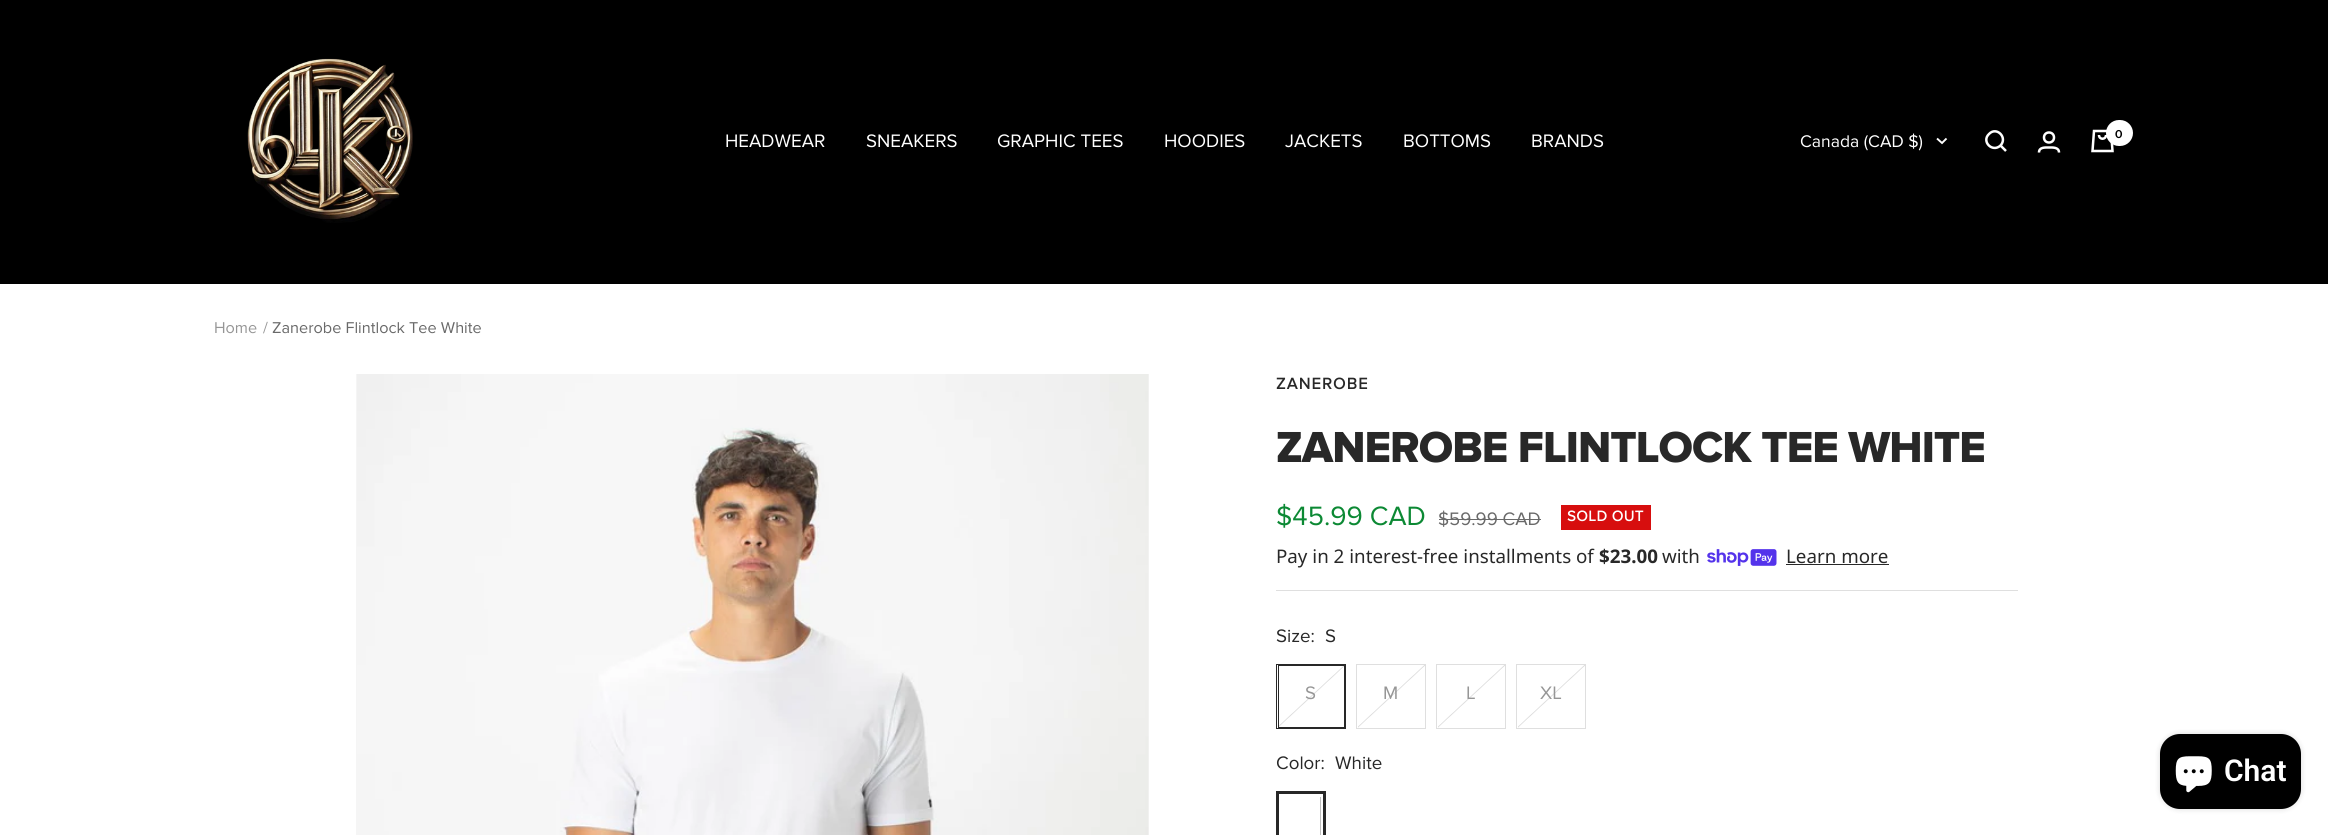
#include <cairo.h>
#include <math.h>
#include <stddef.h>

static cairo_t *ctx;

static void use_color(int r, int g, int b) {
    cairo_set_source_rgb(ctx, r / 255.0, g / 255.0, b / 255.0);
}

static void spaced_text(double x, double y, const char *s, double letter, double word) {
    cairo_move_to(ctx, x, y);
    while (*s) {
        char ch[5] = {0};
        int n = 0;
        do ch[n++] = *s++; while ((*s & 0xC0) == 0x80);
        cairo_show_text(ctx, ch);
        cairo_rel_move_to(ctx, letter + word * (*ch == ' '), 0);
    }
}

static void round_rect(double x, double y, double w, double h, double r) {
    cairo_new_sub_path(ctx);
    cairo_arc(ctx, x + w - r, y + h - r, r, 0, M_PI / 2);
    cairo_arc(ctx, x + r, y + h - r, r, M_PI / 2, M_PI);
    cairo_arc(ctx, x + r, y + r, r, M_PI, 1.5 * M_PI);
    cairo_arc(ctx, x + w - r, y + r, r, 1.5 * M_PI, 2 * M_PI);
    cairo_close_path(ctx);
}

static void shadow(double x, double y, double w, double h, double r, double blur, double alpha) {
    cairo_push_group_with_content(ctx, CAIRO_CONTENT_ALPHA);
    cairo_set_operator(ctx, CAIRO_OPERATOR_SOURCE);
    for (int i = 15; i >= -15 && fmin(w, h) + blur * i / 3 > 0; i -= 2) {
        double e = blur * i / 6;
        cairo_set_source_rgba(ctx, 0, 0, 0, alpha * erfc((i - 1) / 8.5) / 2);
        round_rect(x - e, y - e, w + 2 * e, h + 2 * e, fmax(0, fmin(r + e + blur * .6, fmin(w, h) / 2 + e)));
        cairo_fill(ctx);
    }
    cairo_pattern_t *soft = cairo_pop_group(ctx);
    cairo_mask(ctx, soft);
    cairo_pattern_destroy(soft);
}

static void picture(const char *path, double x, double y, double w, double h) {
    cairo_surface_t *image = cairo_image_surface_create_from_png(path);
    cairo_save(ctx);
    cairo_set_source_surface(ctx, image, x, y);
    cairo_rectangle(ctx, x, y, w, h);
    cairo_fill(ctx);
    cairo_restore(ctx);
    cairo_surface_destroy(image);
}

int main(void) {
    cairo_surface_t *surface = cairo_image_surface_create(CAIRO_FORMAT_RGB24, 2328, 835);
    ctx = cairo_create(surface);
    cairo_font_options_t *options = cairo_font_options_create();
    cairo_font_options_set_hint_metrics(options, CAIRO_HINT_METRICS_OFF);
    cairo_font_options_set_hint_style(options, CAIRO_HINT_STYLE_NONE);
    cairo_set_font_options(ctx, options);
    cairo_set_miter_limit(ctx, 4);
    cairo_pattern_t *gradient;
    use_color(255, 255, 255);
    cairo_paint(ctx);
    use_color(0, 0, 0);
    cairo_rectangle(ctx, 0, 0, 2328, 284);
    cairo_fill(ctx);
    picture("img1.png", 247, 58, 166, 165);
    cairo_select_font_face(ctx, "Proxima Nova", CAIRO_FONT_SLANT_NORMAL, CAIRO_FONT_WEIGHT_NORMAL);
    cairo_set_font_size(ctx, 18.75);
    use_color(255, 255, 255);
    cairo_move_to(ctx, 725, 147);
    cairo_show_text(ctx, "HEADWEAR");
    cairo_move_to(ctx, 866, 147);
    cairo_show_text(ctx, "SNEAKERS");
    cairo_move_to(ctx, 997, 147);
    cairo_show_text(ctx, "GRAPHIC TEES");
    cairo_move_to(ctx, 1164, 147);
    cairo_show_text(ctx, "HOODIES");
    cairo_move_to(ctx, 1285, 147);
    cairo_show_text(ctx, "JACKETS");
    cairo_move_to(ctx, 1403, 147);
    cairo_show_text(ctx, "BOTTOMS");
    cairo_move_to(ctx, 1531, 147);
    cairo_show_text(ctx, "BRANDS");
    cairo_set_font_size(ctx, 17.5);
    cairo_move_to(ctx, 1800, 147);
    cairo_show_text(ctx, "Canada (CAD $)");
    cairo_new_path(ctx);
    cairo_move_to(ctx, 1937, 138.5);
    cairo_line_to(ctx, 1942, 143);
    cairo_line_to(ctx, 1946.5, 138.5);
    cairo_set_line_width(ctx, 1.9);
    cairo_stroke(ctx);
    cairo_new_path(ctx);
    cairo_move_to(ctx, 2000.5, 145.5);
    cairo_curve_to(ctx, 2008, 137.5, 1996.5, 126, 1989, 134);
    cairo_curve_to(ctx, 1981, 141.5, 1992.5, 153, 2000.5, 145.5);
    cairo_close_path(ctx);
    cairo_move_to(ctx, 2000.5, 145.5);
    cairo_line_to(ctx, 2006, 151);
    cairo_set_line_width(ctx, 2.5);
    cairo_stroke(ctx);
    cairo_arc(ctx, 2049, 137.5, 5, 0, 2 * M_PI);
    cairo_stroke(ctx);
    cairo_new_path(ctx);
    cairo_move_to(ctx, 2039, 152.5);
    cairo_curve_to(ctx, 2039, 147, 2045, 147.5, 2049, 147.5);
    cairo_curve_to(ctx, 2052.5, 147.5, 2059, 147, 2059, 152.5);
    cairo_stroke(ctx);
    cairo_new_path(ctx);
    cairo_move_to(ctx, 2094, 131);
    cairo_line_to(ctx, 2111, 131);
    cairo_line_to(ctx, 2112.5, 151);
    cairo_line_to(ctx, 2092.5, 151);
    cairo_close_path(ctx);
    cairo_move_to(ctx, 2099, 135);
    cairo_curve_to(ctx, 2099, 140, 2106, 140, 2106, 135);
    cairo_stroke(ctx);
    round_rect(2106, 120, 27, 26, 13);
    cairo_fill(ctx);
    cairo_select_font_face(ctx, "Instrument Sans SemiBold", CAIRO_FONT_SLANT_NORMAL, CAIRO_FONT_WEIGHT_NORMAL);
    cairo_set_font_size(ctx, 11);
    use_color(0, 0, 0);
    cairo_move_to(ctx, 2115, 138);
    cairo_show_text(ctx, "0");
    cairo_select_font_face(ctx, "Proxima Nova", CAIRO_FONT_SLANT_NORMAL, CAIRO_FONT_WEIGHT_NORMAL);
    cairo_set_font_size(ctx, 16.25);
    use_color(150, 150, 150);
    cairo_move_to(ctx, 214, 333);
    cairo_show_text(ctx, "Home");
    cairo_move_to(ctx, 263, 333);
    cairo_show_text(ctx, "/");
    use_color(105, 105, 105);
    cairo_move_to(ctx, 272, 333);
    cairo_show_text(ctx, "Zanerobe Flintlock Tee White");
    use_color(245, 245, 245);
    cairo_rectangle(ctx, 356, 374, 793, 461);
    cairo_fill(ctx);
    picture("img2.png", 357, 374, 792, 461);
    use_color(223, 223, 223);
    cairo_rectangle(ctx, 1276, 590, 742, 1);
    cairo_fill(ctx);
    cairo_select_font_face(ctx, "Proxima Nova", CAIRO_FONT_SLANT_NORMAL, CAIRO_FONT_WEIGHT_BOLD);
    use_color(40, 40, 40);
    spaced_text(1276, 389, "ZANEROBE", 1.25, 0);
    cairo_select_font_face(ctx, "Proxima Nova ExtraBold", CAIRO_FONT_SLANT_NORMAL, CAIRO_FONT_WEIGHT_NORMAL);
    cairo_set_font_size(ctx, 45);
    spaced_text(1276, 462, "ZANEROBE FLINTLOCK TEE WHITE", -1, 0);
    cairo_select_font_face(ctx, "Proxima Nova", CAIRO_FONT_SLANT_NORMAL, CAIRO_FONT_WEIGHT_NORMAL);
    cairo_set_font_size(ctx, 27.5);
    use_color(12, 137, 52);
    cairo_move_to(ctx, 1276, 525);
    cairo_show_text(ctx, "$45.99 CAD");
    cairo_set_font_size(ctx, 18.75);
    use_color(105, 105, 105);
    cairo_move_to(ctx, 1438, 525);
    cairo_show_text(ctx, "$59.99 CAD");
    cairo_rectangle(ctx, 1439, 519, 102, 1);
    cairo_fill(ctx);
    use_color(215, 14, 14);
    cairo_rectangle(ctx, 1561, 505, 90, 25);
    cairo_fill(ctx);
    cairo_select_font_face(ctx, "Proxima Nova", CAIRO_FONT_SLANT_NORMAL, CAIRO_FONT_WEIGHT_BOLD);
    cairo_set_font_size(ctx, 15);
    use_color(255, 255, 255);
    spaced_text(1567, 521, "SOLD OUT", 0.5, 0);
    cairo_select_font_face(ctx, "Noto Sans", CAIRO_FONT_SLANT_NORMAL, CAIRO_FONT_WEIGHT_NORMAL);
    cairo_set_font_size(ctx, 18.75);
    use_color(40, 40, 40);
    cairo_move_to(ctx, 1276, 563);
    cairo_show_text(ctx, "Pay in 2 interest-free installments of");
    cairo_select_font_face(ctx, "Noto Sans", CAIRO_FONT_SLANT_NORMAL, CAIRO_FONT_WEIGHT_BOLD);
    cairo_move_to(ctx, 1599, 563);
    cairo_show_text(ctx, "$23.00");
    cairo_select_font_face(ctx, "Noto Sans", CAIRO_FONT_SLANT_NORMAL, CAIRO_FONT_WEIGHT_NORMAL);
    cairo_move_to(ctx, 1662, 563);
    cairo_show_text(ctx, "with");
    picture("img3.png", 1707, 549, 70, 17);
    cairo_move_to(ctx, 1786, 563);
    cairo_show_text(ctx, "Learn more");
    cairo_rectangle(ctx, 1786, 564, 103, 1);
    cairo_fill(ctx);
    cairo_select_font_face(ctx, "Proxima Nova", CAIRO_FONT_SLANT_NORMAL, CAIRO_FONT_WEIGHT_NORMAL);
    cairo_move_to(ctx, 1276, 642);
    cairo_show_text(ctx, "Size:");
    cairo_move_to(ctx, 1325, 642);
    cairo_show_text(ctx, "S");
    gradient = cairo_pattern_create_linear(1280, 663, 1342, 730);
    cairo_pattern_add_color_stop_rgba(gradient, 0.49, 1, 1, 1, 1);
    cairo_pattern_add_color_stop_rgba(gradient, 0.5, 0.875, 0.875, 0.875, 1);
    cairo_pattern_add_color_stop_rgba(gradient, 0.51, 1, 1, 1, 1);
    cairo_set_source(ctx, gradient);
    cairo_pattern_destroy(gradient);
    cairo_rectangle(ctx, 1279, 666, 65, 61);
    cairo_fill(ctx);
    cairo_rectangle(ctx, 1276.5, 664.5, 69, 64);
    use_color(40, 40, 40);
    cairo_set_line_width(ctx, 1);
    cairo_stroke(ctx);
    cairo_rectangle(ctx, 1278.5, 665.5, 66, 62);
    cairo_stroke(ctx);
    use_color(150, 150, 150);
    cairo_move_to(ctx, 1305, 699);
    cairo_show_text(ctx, "S");
    gradient = cairo_pattern_create_linear(1360, 663, 1422, 730);
    cairo_pattern_add_color_stop_rgba(gradient, 0.49, 1, 1, 1, 1);
    cairo_pattern_add_color_stop_rgba(gradient, 0.5, 0.875, 0.875, 0.875, 1);
    cairo_pattern_add_color_stop_rgba(gradient, 0.51, 1, 1, 1, 1);
    cairo_set_source(ctx, gradient);
    cairo_pattern_destroy(gradient);
    cairo_rectangle(ctx, 1358, 665, 67, 63);
    cairo_fill(ctx);
    cairo_rectangle(ctx, 1356.5, 664.5, 69, 64);
    use_color(223, 223, 223);
    cairo_stroke(ctx);
    use_color(150, 150, 150);
    cairo_move_to(ctx, 1383, 699);
    cairo_show_text(ctx, "M");
    gradient = cairo_pattern_create_linear(1440, 663, 1502, 730);
    cairo_pattern_add_color_stop_rgba(gradient, 0.49, 1, 1, 1, 1);
    cairo_pattern_add_color_stop_rgba(gradient, 0.5, 0.875, 0.875, 0.875, 1);
    cairo_pattern_add_color_stop_rgba(gradient, 0.51, 1, 1, 1, 1);
    cairo_set_source(ctx, gradient);
    cairo_pattern_destroy(gradient);
    cairo_rectangle(ctx, 1438, 665, 67, 63);
    cairo_fill(ctx);
    cairo_rectangle(ctx, 1436.5, 664.5, 69, 64);
    use_color(223, 223, 223);
    cairo_stroke(ctx);
    use_color(150, 150, 150);
    cairo_move_to(ctx, 1466, 699);
    cairo_show_text(ctx, "L");
    gradient = cairo_pattern_create_linear(1520, 663, 1582, 730);
    cairo_pattern_add_color_stop_rgba(gradient, 0.49, 1, 1, 1, 1);
    cairo_pattern_add_color_stop_rgba(gradient, 0.5, 0.875, 0.875, 0.875, 1);
    cairo_pattern_add_color_stop_rgba(gradient, 0.51, 1, 1, 1, 1);
    cairo_set_source(ctx, gradient);
    cairo_pattern_destroy(gradient);
    cairo_rectangle(ctx, 1518, 665, 67, 63);
    cairo_fill(ctx);
    cairo_rectangle(ctx, 1516.5, 664.5, 69, 64);
    use_color(223, 223, 223);
    cairo_stroke(ctx);
    use_color(150, 150, 150);
    cairo_move_to(ctx, 1540, 699);
    cairo_show_text(ctx, "XL");
    use_color(40, 40, 40);
    cairo_move_to(ctx, 1276, 769);
    cairo_show_text(ctx, "Color:");
    cairo_move_to(ctx, 1335, 769);
    cairo_show_text(ctx, "White");
    cairo_rectangle(ctx, 1281.5, 796.5, 39, 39);
    use_color(191, 191, 191);
    cairo_stroke(ctx);
    cairo_rectangle(ctx, 1280.5, 795.5, 42, 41);
    use_color(255, 255, 255);
    cairo_set_line_width(ctx, 3);
    cairo_stroke(ctx);
    cairo_rectangle(ctx, 1277.5, 792.5, 47, 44);
    use_color(40, 40, 40);
    cairo_stroke(ctx);
    use_color(0, 0, 0);
    shadow(2160, 734, 141, 75, 20, 3, 0.15);
    use_color(0, 0, 0);
    round_rect(2160, 734, 141, 75, 20);
    cairo_fill(ctx);
    picture("img4.png", 2175, 756, 37, 37);
    cairo_select_font_face(ctx, "Roboto SemiBold", CAIRO_FONT_SLANT_NORMAL, CAIRO_FONT_WEIGHT_NORMAL);
    cairo_set_font_size(ctx, 30);
    use_color(255, 255, 255);
    cairo_move_to(ctx, 2224, 781);
    cairo_show_text(ctx, "Chat");
    cairo_surface_write_to_png(surface, "result.png");
    cairo_font_options_destroy(options);
    cairo_destroy(ctx);
    cairo_surface_destroy(surface);
    return 0;
}
